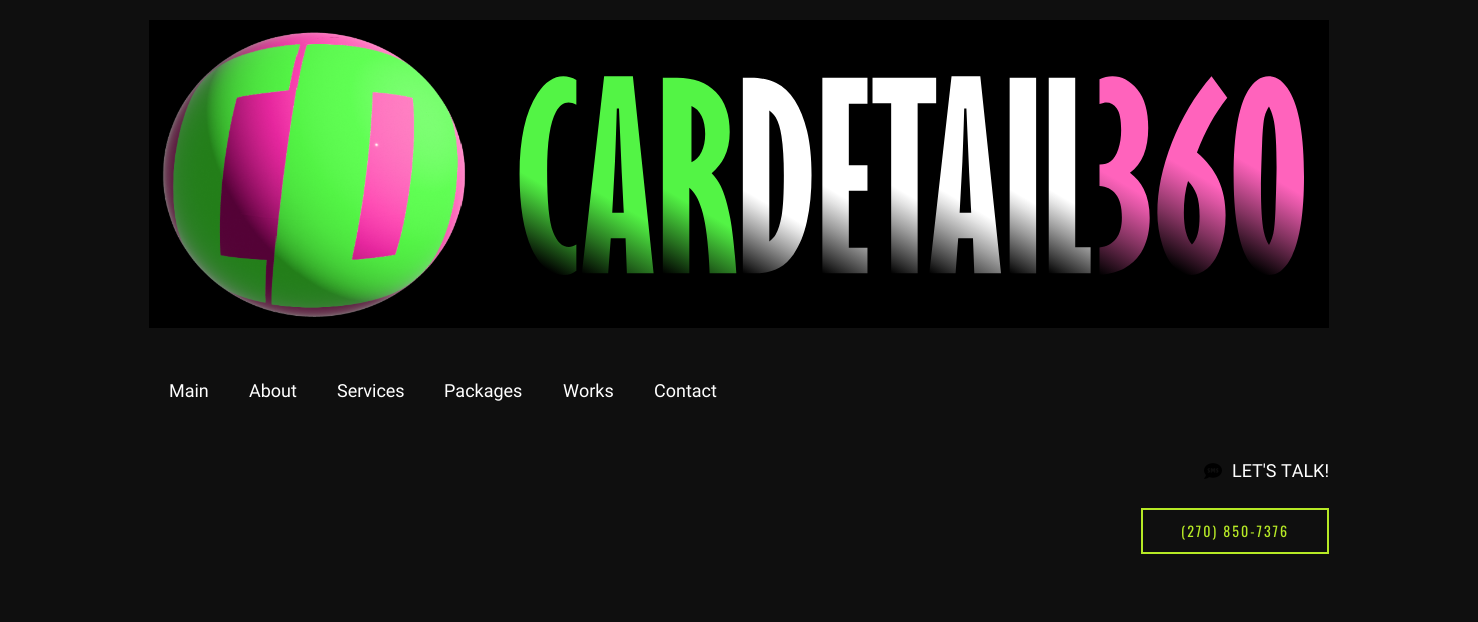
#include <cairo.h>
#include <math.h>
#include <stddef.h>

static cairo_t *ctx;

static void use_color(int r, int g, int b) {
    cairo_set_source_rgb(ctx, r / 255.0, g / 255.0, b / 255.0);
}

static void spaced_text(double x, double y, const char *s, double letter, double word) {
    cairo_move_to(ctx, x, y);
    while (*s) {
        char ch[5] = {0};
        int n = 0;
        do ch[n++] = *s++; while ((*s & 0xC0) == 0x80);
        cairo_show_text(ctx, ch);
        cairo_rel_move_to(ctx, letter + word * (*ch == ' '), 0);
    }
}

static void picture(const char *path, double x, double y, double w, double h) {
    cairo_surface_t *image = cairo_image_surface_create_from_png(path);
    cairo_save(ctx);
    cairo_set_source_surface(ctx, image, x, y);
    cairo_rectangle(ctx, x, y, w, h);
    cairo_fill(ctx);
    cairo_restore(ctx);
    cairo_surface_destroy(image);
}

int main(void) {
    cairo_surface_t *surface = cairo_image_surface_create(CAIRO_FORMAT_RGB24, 1478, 622);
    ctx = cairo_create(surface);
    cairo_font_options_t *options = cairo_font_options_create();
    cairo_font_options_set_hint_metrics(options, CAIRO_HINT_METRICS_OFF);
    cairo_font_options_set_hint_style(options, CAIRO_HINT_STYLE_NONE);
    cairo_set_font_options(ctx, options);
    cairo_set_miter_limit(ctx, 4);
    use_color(15, 15, 15);
    cairo_paint(ctx);
    picture("img1.png", 149, 20, 1180, 308);
    cairo_select_font_face(ctx, "Roboto", CAIRO_FONT_SLANT_NORMAL, CAIRO_FONT_WEIGHT_NORMAL);
    cairo_set_font_size(ctx, 18);
    use_color(255, 255, 255);
    cairo_move_to(ctx, 169, 397);
    cairo_show_text(ctx, "Main");
    cairo_move_to(ctx, 249, 397);
    cairo_show_text(ctx, "About");
    cairo_move_to(ctx, 337, 397);
    cairo_show_text(ctx, "Services");
    cairo_move_to(ctx, 444, 397);
    cairo_show_text(ctx, "Packages");
    cairo_move_to(ctx, 563, 397);
    cairo_show_text(ctx, "Works");
    cairo_move_to(ctx, 654, 397);
    cairo_show_text(ctx, "Contact");
    picture("img2.png", 1204, 463, 18, 16);
    cairo_move_to(ctx, 1232, 477);
    cairo_show_text(ctx, "LET'S TALK!");
    cairo_rectangle(ctx, 1142, 509, 186, 44);
    use_color(182, 233, 37);
    cairo_stroke(ctx);
    cairo_select_font_face(ctx, "Oswald", CAIRO_FONT_SLANT_NORMAL, CAIRO_FONT_WEIGHT_NORMAL);
    cairo_set_font_size(ctx, 14);
    spaced_text(1181, 537, "(270) 850-7376", 2, 0);
    cairo_surface_write_to_png(surface, "result.png");
    cairo_font_options_destroy(options);
    cairo_destroy(ctx);
    cairo_surface_destroy(surface);
    return 0;
}
